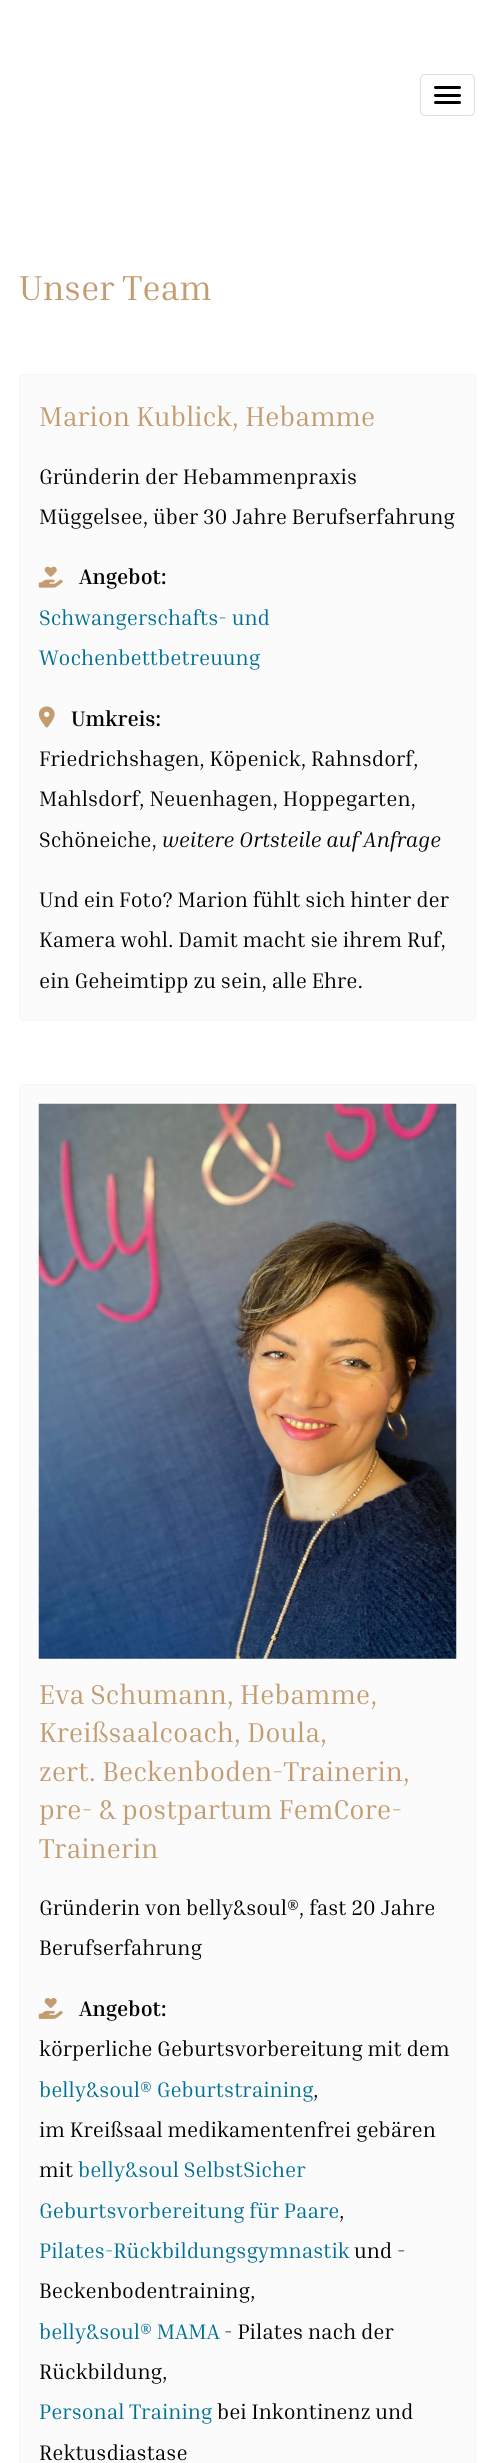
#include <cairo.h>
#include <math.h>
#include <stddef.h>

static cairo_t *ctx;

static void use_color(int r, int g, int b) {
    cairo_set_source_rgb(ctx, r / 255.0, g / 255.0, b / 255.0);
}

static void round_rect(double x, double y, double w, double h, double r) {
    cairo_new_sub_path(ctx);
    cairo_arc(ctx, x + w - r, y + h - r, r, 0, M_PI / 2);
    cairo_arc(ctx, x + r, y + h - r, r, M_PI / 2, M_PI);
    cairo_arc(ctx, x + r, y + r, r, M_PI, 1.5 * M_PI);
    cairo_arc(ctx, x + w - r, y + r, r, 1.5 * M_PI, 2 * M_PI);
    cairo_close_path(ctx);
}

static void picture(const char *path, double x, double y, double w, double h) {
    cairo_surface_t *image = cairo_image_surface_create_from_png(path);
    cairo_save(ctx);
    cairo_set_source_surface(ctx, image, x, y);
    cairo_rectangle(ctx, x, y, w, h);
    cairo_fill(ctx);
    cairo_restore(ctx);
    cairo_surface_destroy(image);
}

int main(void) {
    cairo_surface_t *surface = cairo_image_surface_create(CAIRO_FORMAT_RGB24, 495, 2463);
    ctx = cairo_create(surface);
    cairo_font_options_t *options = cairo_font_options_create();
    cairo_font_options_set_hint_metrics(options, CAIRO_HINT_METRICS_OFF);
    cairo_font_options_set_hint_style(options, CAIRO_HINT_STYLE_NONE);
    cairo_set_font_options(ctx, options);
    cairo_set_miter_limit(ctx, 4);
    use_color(255, 255, 255);
    cairo_paint(ctx);
    round_rect(420.5, 74.5, 54, 41, 4.5);
    use_color(221, 221, 221);
    cairo_set_line_width(ctx, 1);
    cairo_stroke(ctx);
    use_color(0, 0, 0);
    round_rect(434, 86, 27, 3, 1.5);
    cairo_fill(ctx);
    round_rect(434, 94, 27, 3, 1.5);
    cairo_fill(ctx);
    round_rect(434, 101, 27, 3, 1.5);
    cairo_fill(ctx);
    cairo_select_font_face(ctx, "Inria Serif", CAIRO_FONT_SLANT_NORMAL, CAIRO_FONT_WEIGHT_NORMAL);
    cairo_set_font_size(ctx, 35);
    use_color(195, 157, 113);
    cairo_move_to(ctx, 19, 300);
    cairo_show_text(ctx, "Unser Team");
    use_color(251, 251, 251);
    round_rect(19.5, 374.5, 456, 646, 4.5);
    cairo_fill_preserve(ctx);
    use_color(246, 246, 246);
    cairo_stroke(ctx);
    cairo_set_font_size(ctx, 27.5);
    use_color(195, 157, 113);
    cairo_move_to(ctx, 39, 426);
    cairo_show_text(ctx, "Marion Kublick, Hebamme");
    cairo_set_font_size(ctx, 21.25);
    use_color(0, 0, 0);
    cairo_move_to(ctx, 39, 484);
    cairo_show_text(ctx, "Gründerin der Hebammenpraxis");
    cairo_move_to(ctx, 39, 524);
    cairo_show_text(ctx, "Müggelsee, über 30 Jahre Berufserfahrung");
    picture("img1.png", 38, 566, 25, 22);
    cairo_select_font_face(ctx, "Inria Serif", CAIRO_FONT_SLANT_NORMAL, CAIRO_FONT_WEIGHT_BOLD);
    cairo_move_to(ctx, 79, 584);
    cairo_show_text(ctx, "Angebot:");
    cairo_select_font_face(ctx, "Inria Serif", CAIRO_FONT_SLANT_NORMAL, CAIRO_FONT_WEIGHT_NORMAL);
    use_color(0, 113, 149);
    cairo_move_to(ctx, 39, 625);
    cairo_show_text(ctx, "Schwangerschafts- und");
    cairo_move_to(ctx, 39, 665);
    cairo_show_text(ctx, "Wochenbettbetreuung");
    picture("img2.png", 38, 706, 17, 22);
    cairo_select_font_face(ctx, "Inria Serif", CAIRO_FONT_SLANT_NORMAL, CAIRO_FONT_WEIGHT_BOLD);
    use_color(0, 0, 0);
    cairo_move_to(ctx, 71, 726);
    cairo_show_text(ctx, "Umkreis:");
    cairo_select_font_face(ctx, "Inria Serif", CAIRO_FONT_SLANT_NORMAL, CAIRO_FONT_WEIGHT_NORMAL);
    cairo_move_to(ctx, 39, 766);
    cairo_show_text(ctx, "Friedrichshagen, Köpenick, Rahnsdorf,");
    cairo_move_to(ctx, 39, 806);
    cairo_show_text(ctx, "Mahlsdorf, Neuenhagen, Hoppegarten,");
    cairo_move_to(ctx, 39, 847);
    cairo_show_text(ctx, "Schöneiche,");
    cairo_select_font_face(ctx, "Inria Serif", CAIRO_FONT_SLANT_ITALIC, CAIRO_FONT_WEIGHT_NORMAL);
    cairo_move_to(ctx, 162, 847);
    cairo_show_text(ctx, "weitere Ortsteile auf Anfrage");
    cairo_select_font_face(ctx, "Inria Serif", CAIRO_FONT_SLANT_NORMAL, CAIRO_FONT_WEIGHT_NORMAL);
    cairo_move_to(ctx, 39, 907);
    cairo_show_text(ctx, "Und ein Foto? Marion fühlt sich hinter der");
    cairo_move_to(ctx, 39, 947);
    cairo_show_text(ctx, "Kamera wohl. Damit macht sie ihrem Ruf,");
    cairo_move_to(ctx, 39, 988);
    cairo_show_text(ctx, "ein Geheimtipp zu sein, alle Ehre.");
    use_color(251, 251, 251);
    round_rect(19.5, 1084.5, 456, 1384, 4.5);
    cairo_fill_preserve(ctx);
    use_color(246, 246, 246);
    cairo_stroke(ctx);
    picture("img3.png", 38, 1103, 419, 556);
    cairo_set_font_size(ctx, 27.5);
    use_color(195, 157, 113);
    cairo_move_to(ctx, 39, 1704);
    cairo_show_text(ctx, "Eva Schumann, Hebamme,");
    cairo_move_to(ctx, 39, 1742);
    cairo_show_text(ctx, "Kreißsaalcoach, Doula,");
    cairo_move_to(ctx, 39, 1781);
    cairo_show_text(ctx, "zert. Beckenboden-Trainerin,");
    cairo_move_to(ctx, 39, 1819);
    cairo_show_text(ctx, "pre- & postpartum FemCore-");
    cairo_move_to(ctx, 39, 1858);
    cairo_show_text(ctx, "Trainerin");
    cairo_set_font_size(ctx, 21.25);
    use_color(0, 0, 0);
    cairo_move_to(ctx, 39, 1915);
    cairo_show_text(ctx, "Gründerin von belly&soul®, fast 20 Jahre");
    cairo_move_to(ctx, 39, 1955);
    cairo_show_text(ctx, "Berufserfahrung");
    picture("img4.png", 38, 1998, 25, 21);
    cairo_select_font_face(ctx, "Inria Serif", CAIRO_FONT_SLANT_NORMAL, CAIRO_FONT_WEIGHT_BOLD);
    cairo_move_to(ctx, 79, 2016);
    cairo_show_text(ctx, "Angebot:");
    cairo_select_font_face(ctx, "Inria Serif", CAIRO_FONT_SLANT_NORMAL, CAIRO_FONT_WEIGHT_NORMAL);
    cairo_move_to(ctx, 39, 2056);
    cairo_show_text(ctx, "körperliche Geburtsvorbereitung mit dem");
    use_color(0, 113, 149);
    cairo_move_to(ctx, 39, 2097);
    cairo_show_text(ctx, "belly&soul® Geburtstraining");
    use_color(0, 0, 0);
    cairo_move_to(ctx, 313, 2097);
    cairo_show_text(ctx, ",");
    cairo_move_to(ctx, 39, 2137);
    cairo_show_text(ctx, "im Kreißsaal medikamentenfrei gebären");
    cairo_move_to(ctx, 39, 2177);
    cairo_show_text(ctx, "mit");
    use_color(0, 113, 149);
    cairo_move_to(ctx, 78, 2177);
    cairo_show_text(ctx, "belly&soul SelbstSicher");
    cairo_move_to(ctx, 39, 2218);
    cairo_show_text(ctx, "Geburtsvorbereitung für Paare");
    use_color(0, 0, 0);
    cairo_move_to(ctx, 339, 2218);
    cairo_show_text(ctx, ",");
    use_color(0, 113, 149);
    cairo_move_to(ctx, 39, 2258);
    cairo_show_text(ctx, "Pilates-Rückbildungsgymnastik");
    use_color(0, 0, 0);
    cairo_move_to(ctx, 354, 2258);
    cairo_show_text(ctx, "und -");
    cairo_move_to(ctx, 39, 2298);
    cairo_show_text(ctx, "Beckenbodentraining,");
    use_color(0, 113, 149);
    cairo_move_to(ctx, 39, 2339);
    cairo_show_text(ctx, "belly&soul® MAMA");
    use_color(0, 0, 0);
    cairo_move_to(ctx, 224, 2339);
    cairo_show_text(ctx, "- Pilates nach der");
    cairo_move_to(ctx, 39, 2379);
    cairo_show_text(ctx, "Rückbildung,");
    use_color(0, 113, 149);
    cairo_move_to(ctx, 39, 2419);
    cairo_show_text(ctx, "Personal Training");
    use_color(0, 0, 0);
    cairo_move_to(ctx, 217, 2419);
    cairo_show_text(ctx, "bei Inkontinenz und");
    cairo_move_to(ctx, 39, 2460);
    cairo_show_text(ctx, "Rektusdiastase");
    cairo_surface_write_to_png(surface, "result.png");
    cairo_font_options_destroy(options);
    cairo_destroy(ctx);
    cairo_surface_destroy(surface);
    return 0;
}
